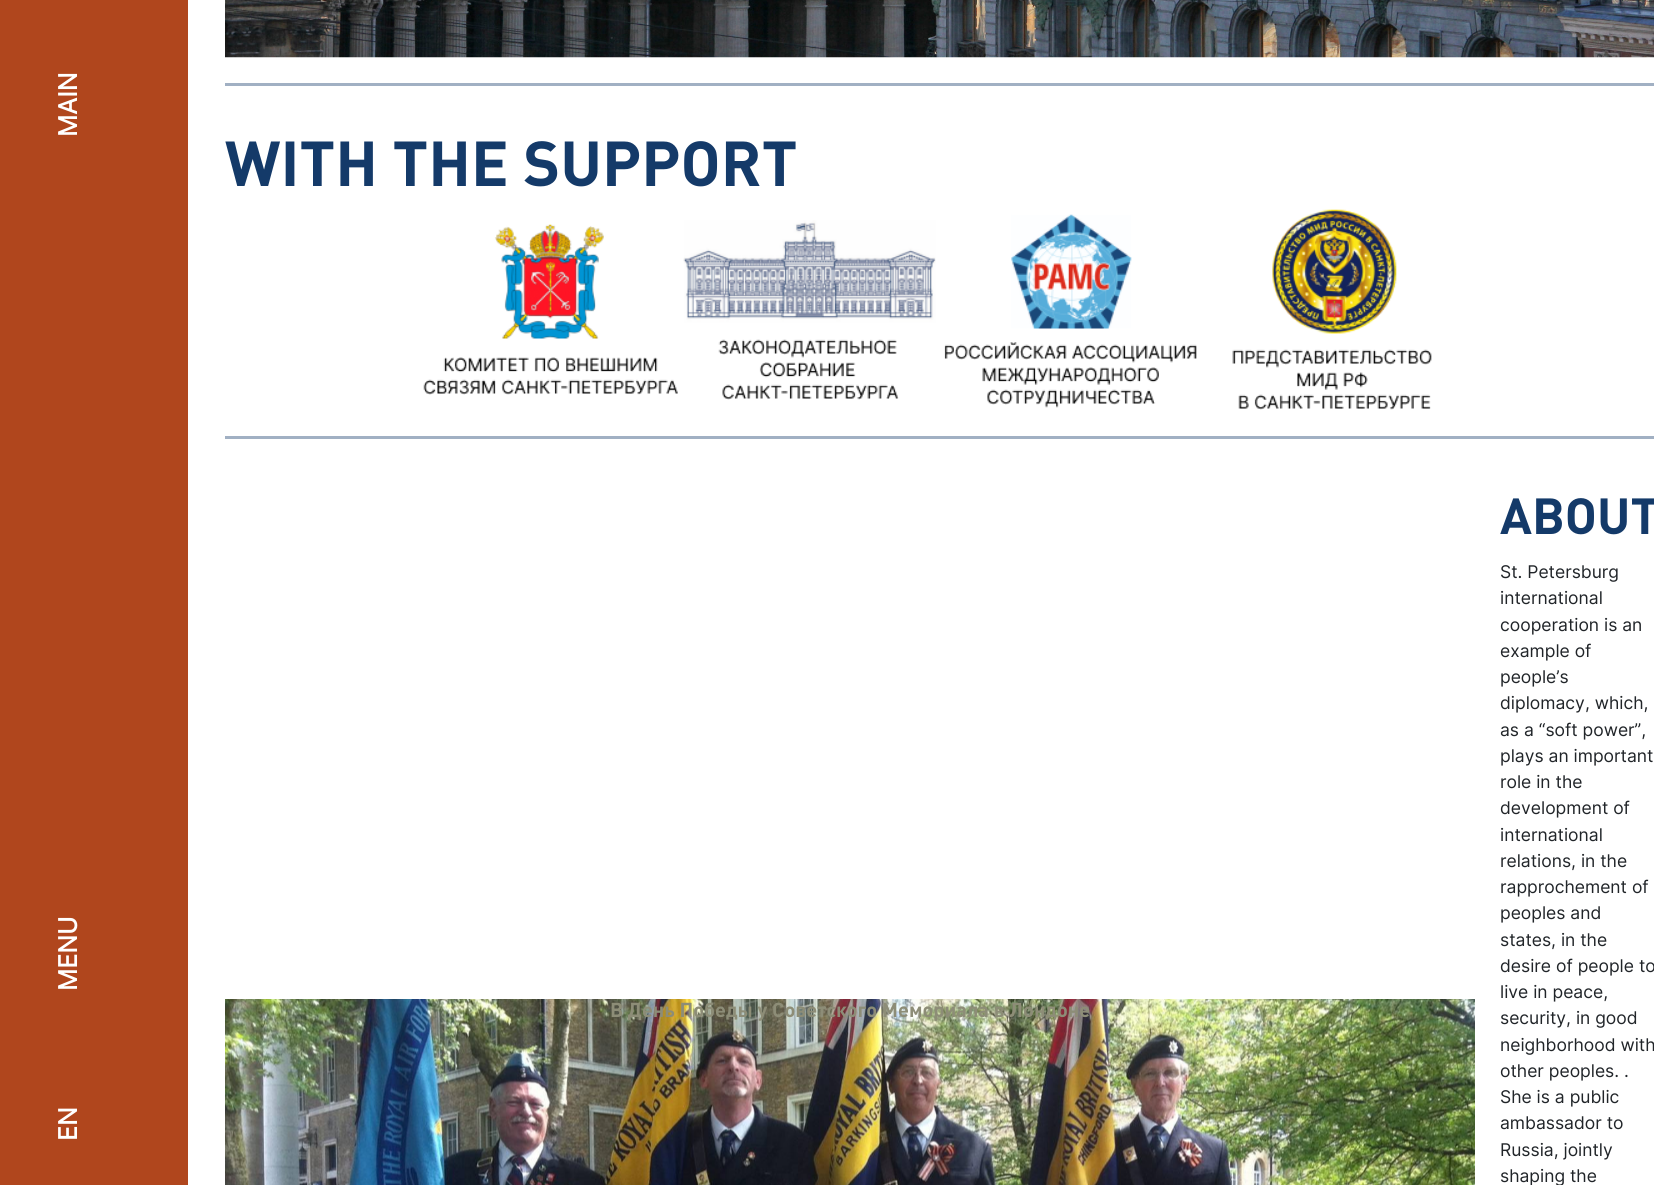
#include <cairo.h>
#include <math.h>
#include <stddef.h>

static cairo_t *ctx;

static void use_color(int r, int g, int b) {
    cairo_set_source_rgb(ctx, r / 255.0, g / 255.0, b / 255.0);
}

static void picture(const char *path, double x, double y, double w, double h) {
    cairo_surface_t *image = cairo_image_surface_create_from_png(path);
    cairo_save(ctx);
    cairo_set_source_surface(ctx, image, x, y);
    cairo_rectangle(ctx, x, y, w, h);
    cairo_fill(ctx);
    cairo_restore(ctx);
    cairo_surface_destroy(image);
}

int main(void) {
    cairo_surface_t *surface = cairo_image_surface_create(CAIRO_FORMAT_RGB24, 1654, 1185);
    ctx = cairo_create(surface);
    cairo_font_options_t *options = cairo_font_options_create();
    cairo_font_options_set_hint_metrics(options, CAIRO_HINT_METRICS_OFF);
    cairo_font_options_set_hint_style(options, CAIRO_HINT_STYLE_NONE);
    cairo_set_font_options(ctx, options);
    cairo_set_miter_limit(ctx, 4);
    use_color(255, 255, 255);
    cairo_paint(ctx);
    picture("img1.png", 225, 0, 1429, 58);
    use_color(176, 70, 29);
    cairo_rectangle(ctx, 0, 0, 188, 1185);
    cairo_fill(ctx);
    cairo_select_font_face(ctx, "Inter", CAIRO_FONT_SLANT_NORMAL, CAIRO_FONT_WEIGHT_BOLD);
    cairo_set_font_size(ctx, 25);
    use_color(255, 255, 255);
    cairo_save(ctx);
    cairo_translate(ctx, 77, 137);
    cairo_rotate(ctx, -90 * M_PI / 180);
    cairo_move_to(ctx, 0, 0);
    cairo_show_text(ctx, "MAIN");
    cairo_restore(ctx);
    cairo_save(ctx);
    cairo_translate(ctx, 77, 991);
    cairo_rotate(ctx, -90 * M_PI / 180);
    cairo_move_to(ctx, 0, 0);
    cairo_show_text(ctx, "MENU");
    cairo_restore(ctx);
    cairo_save(ctx);
    cairo_translate(ctx, 77, 1141);
    cairo_rotate(ctx, -90 * M_PI / 180);
    cairo_move_to(ctx, 0, 0);
    cairo_show_text(ctx, "EN");
    cairo_restore(ctx);
    use_color(161, 176, 195);
    cairo_rectangle(ctx, 225, 83, 1429, 3);
    cairo_fill(ctx);
    cairo_rectangle(ctx, 225, 436, 1429, 3);
    cairo_fill(ctx);
    cairo_select_font_face(ctx, "DIN", CAIRO_FONT_SLANT_NORMAL, CAIRO_FONT_WEIGHT_BOLD);
    cairo_set_font_size(ctx, 62.5);
    use_color(20, 58, 105);
    cairo_move_to(ctx, 225, 186);
    cairo_show_text(ctx, "WITH THE SUPPORT");
    picture("img2.png", 423, 224, 255, 171);
    picture("img3.png", 683, 220, 253, 180);
    picture("img4.png", 944, 214, 253, 194);
    picture("img5.png", 1232, 209, 200, 201);
    picture("img6.png", 225, 999, 1250, 186);
    cairo_set_font_size(ctx, 20);
    use_color(141, 141, 119);
    cairo_move_to(ctx, 610, 1017);
    cairo_show_text(ctx, "В День Победы у Советского Мемориала в Лондоне");
    cairo_set_font_size(ctx, 50);
    use_color(20, 58, 105);
    cairo_move_to(ctx, 1500, 534);
    cairo_show_text(ctx, "ABOUT");
    cairo_select_font_face(ctx, "Inter", CAIRO_FONT_SLANT_NORMAL, CAIRO_FONT_WEIGHT_NORMAL);
    cairo_set_font_size(ctx, 17.5);
    use_color(33, 37, 41);
    cairo_move_to(ctx, 1500, 578);
    cairo_show_text(ctx, "St. Petersburg");
    cairo_move_to(ctx, 1500, 604);
    cairo_show_text(ctx, "international");
    cairo_move_to(ctx, 1500, 631);
    cairo_show_text(ctx, "cooperation is an");
    cairo_move_to(ctx, 1500, 657);
    cairo_show_text(ctx, "example of");
    cairo_move_to(ctx, 1500, 683);
    cairo_show_text(ctx, "people’s");
    cairo_move_to(ctx, 1500, 709);
    cairo_show_text(ctx, "diplomacy, which,");
    cairo_move_to(ctx, 1500, 736);
    cairo_show_text(ctx, "as a “soft power”,");
    cairo_move_to(ctx, 1500, 762);
    cairo_show_text(ctx, "plays an important");
    cairo_move_to(ctx, 1500, 788);
    cairo_show_text(ctx, "role in the");
    cairo_move_to(ctx, 1500, 814);
    cairo_show_text(ctx, "development of");
    cairo_move_to(ctx, 1500, 841);
    cairo_show_text(ctx, "international");
    cairo_move_to(ctx, 1500, 867);
    cairo_show_text(ctx, "relations, in the");
    cairo_move_to(ctx, 1500, 893);
    cairo_show_text(ctx, "rapprochement of");
    cairo_move_to(ctx, 1500, 919);
    cairo_show_text(ctx, "peoples and");
    cairo_move_to(ctx, 1500, 946);
    cairo_show_text(ctx, "states, in the");
    cairo_move_to(ctx, 1500, 972);
    cairo_show_text(ctx, "desire of people to");
    cairo_move_to(ctx, 1500, 998);
    cairo_show_text(ctx, "live in peace,");
    cairo_move_to(ctx, 1500, 1024);
    cairo_show_text(ctx, "security, in good");
    cairo_move_to(ctx, 1500, 1051);
    cairo_show_text(ctx, "neighborhood with");
    cairo_move_to(ctx, 1500, 1077);
    cairo_show_text(ctx, "other peoples. .");
    cairo_move_to(ctx, 1500, 1103);
    cairo_show_text(ctx, "She is a public");
    cairo_move_to(ctx, 1500, 1129);
    cairo_show_text(ctx, "ambassador to");
    cairo_move_to(ctx, 1500, 1156);
    cairo_show_text(ctx, "Russia, jointly");
    cairo_move_to(ctx, 1500, 1182);
    cairo_show_text(ctx, "shaping the");
    cairo_surface_write_to_png(surface, "result.png");
    cairo_font_options_destroy(options);
    cairo_destroy(ctx);
    cairo_surface_destroy(surface);
    return 0;
}
